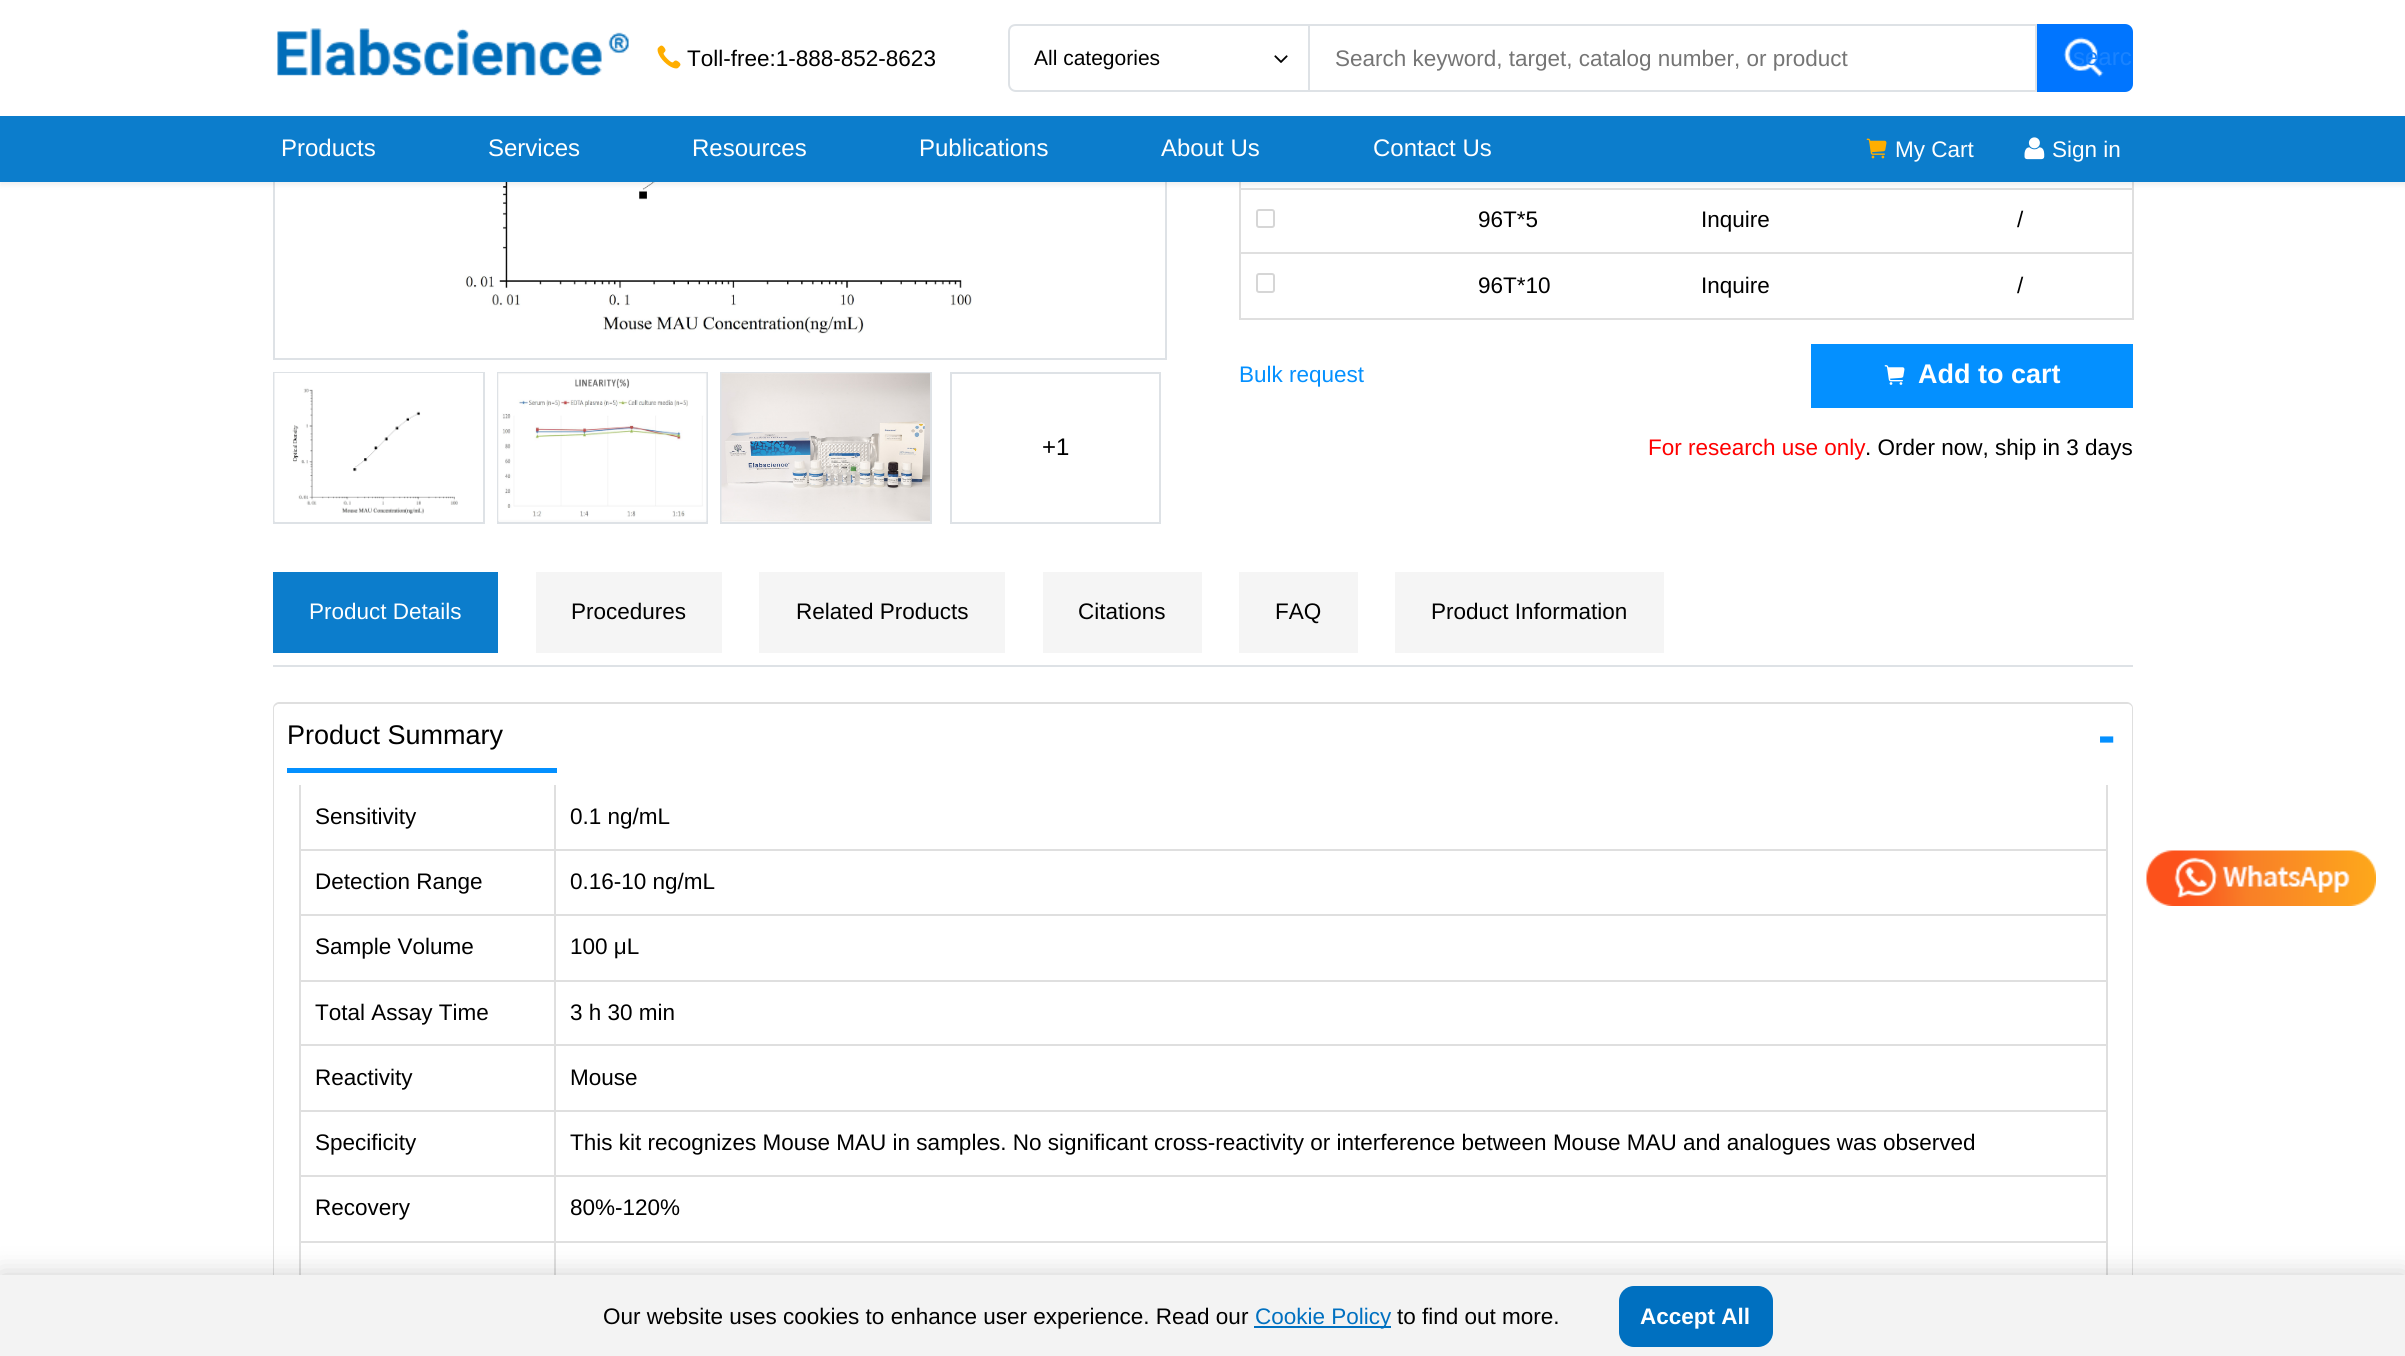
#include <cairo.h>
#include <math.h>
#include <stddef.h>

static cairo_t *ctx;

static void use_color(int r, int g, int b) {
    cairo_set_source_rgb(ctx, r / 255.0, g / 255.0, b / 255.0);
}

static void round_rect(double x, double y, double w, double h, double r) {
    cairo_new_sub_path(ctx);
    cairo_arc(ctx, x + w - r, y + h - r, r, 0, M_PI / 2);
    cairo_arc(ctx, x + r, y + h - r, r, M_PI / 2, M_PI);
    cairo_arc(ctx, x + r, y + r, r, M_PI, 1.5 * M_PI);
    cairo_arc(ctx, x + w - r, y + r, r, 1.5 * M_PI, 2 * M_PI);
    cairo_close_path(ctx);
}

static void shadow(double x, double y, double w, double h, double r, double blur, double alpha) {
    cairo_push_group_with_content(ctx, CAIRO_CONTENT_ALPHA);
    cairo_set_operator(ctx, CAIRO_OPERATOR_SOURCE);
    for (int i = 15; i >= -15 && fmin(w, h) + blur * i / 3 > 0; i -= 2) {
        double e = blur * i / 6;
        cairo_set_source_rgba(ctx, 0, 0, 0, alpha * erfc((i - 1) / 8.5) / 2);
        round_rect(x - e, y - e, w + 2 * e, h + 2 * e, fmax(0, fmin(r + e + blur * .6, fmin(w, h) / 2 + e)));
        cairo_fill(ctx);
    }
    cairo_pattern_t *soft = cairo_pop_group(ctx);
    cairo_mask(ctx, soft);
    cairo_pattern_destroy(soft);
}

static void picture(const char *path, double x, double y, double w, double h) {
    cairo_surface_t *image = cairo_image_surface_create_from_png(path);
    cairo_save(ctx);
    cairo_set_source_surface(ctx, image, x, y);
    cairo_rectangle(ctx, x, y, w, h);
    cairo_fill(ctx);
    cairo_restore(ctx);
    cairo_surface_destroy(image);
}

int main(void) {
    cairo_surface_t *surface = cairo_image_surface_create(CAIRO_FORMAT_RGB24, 2405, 1356);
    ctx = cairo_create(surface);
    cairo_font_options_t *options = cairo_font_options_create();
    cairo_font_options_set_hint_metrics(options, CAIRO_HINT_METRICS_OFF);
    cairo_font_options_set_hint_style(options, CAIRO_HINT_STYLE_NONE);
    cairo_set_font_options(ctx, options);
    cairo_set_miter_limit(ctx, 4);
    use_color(255, 255, 255);
    cairo_paint(ctx);
    cairo_rectangle(ctx, 274, -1, 892, 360);
    use_color(222, 226, 230);
    cairo_stroke(ctx);
    picture("img7.png", 445, 182, 527, 152);
    use_color(223, 223, 223);
    cairo_rectangle(ctx, 2132, 182, 2, 138);
    cairo_fill(ctx);
    cairo_rectangle(ctx, 1239, 182, 2, 138);
    cairo_fill(ctx);
    cairo_rectangle(ctx, 1239, 188, 894, 2);
    cairo_fill(ctx);
    use_color(0, 0, 0);
    shadow(0, 3, 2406, 182, 0, 3, 0.07);
    use_color(255, 255, 255);
    cairo_rectangle(ctx, 0, 0, 2405, 116);
    cairo_fill(ctx);
    picture("img1.png", 277, 28, 352, 48);
    picture("img2.png", 657, 45, 24, 24);
    cairo_select_font_face(ctx, "Liberation Sans", CAIRO_FONT_SLANT_NORMAL, CAIRO_FONT_WEIGHT_NORMAL);
    cairo_set_font_size(ctx, 22.5);
    use_color(0, 0, 0);
    cairo_move_to(ctx, 687, 66);
    cairo_show_text(ctx, "Toll-free:1-888-852-8623");
    use_color(222, 226, 230);
    cairo_set_fill_rule(ctx, CAIRO_FILL_RULE_EVEN_ODD);
    cairo_new_path(ctx);
    cairo_move_to(ctx, 1016, 24);
    cairo_line_to(ctx, 1308, 24);
    cairo_line_to(ctx, 1308, 92);
    cairo_line_to(ctx, 1016, 92);
    cairo_curve_to(ctx, 1011, 92, 1008, 88, 1008, 84);
    cairo_line_to(ctx, 1008, 32);
    cairo_curve_to(ctx, 1008, 27, 1011, 24, 1016, 24);
    cairo_close_path(ctx);
    cairo_move_to(ctx, 1016, 26);
    cairo_line_to(ctx, 1308, 26);
    cairo_line_to(ctx, 1308, 90);
    cairo_line_to(ctx, 1016, 90);
    cairo_curve_to(ctx, 1012, 90, 1010, 87, 1010, 84);
    cairo_line_to(ctx, 1010, 32);
    cairo_curve_to(ctx, 1010, 28, 1012, 26, 1016, 26);
    cairo_close_path(ctx);
    cairo_fill(ctx);
    cairo_set_font_size(ctx, 21);
    use_color(0, 0, 0);
    cairo_move_to(ctx, 1034, 65);
    cairo_show_text(ctx, "All categories");
    picture("img3.png", 1274, 55, 14, 8);
    cairo_rectangle(ctx, 1309, 25, 727, 66);
    use_color(222, 226, 230);
    cairo_stroke(ctx);
    cairo_set_font_size(ctx, 22.5);
    use_color(117, 117, 117);
    cairo_move_to(ctx, 1335, 66);
    cairo_show_text(ctx, "Search keyword, target, catalog number, or product");
    use_color(0, 117, 255);
    cairo_new_path(ctx);
    cairo_move_to(ctx, 2037, 24);
    cairo_line_to(ctx, 2125, 24);
    cairo_curve_to(ctx, 2129.5, 24, 2133, 27.5, 2133, 32);
    cairo_line_to(ctx, 2133, 84);
    cairo_curve_to(ctx, 2133, 88.5, 2129.5, 92, 2125, 92);
    cairo_line_to(ctx, 2037, 92);
    cairo_close_path(ctx);
    cairo_fill(ctx);
    picture("img4.png", 2063, 37, 41, 40);
    cairo_set_font_size(ctx, 24);
    use_color(26, 131, 255);
    cairo_move_to(ctx, 2073, 65);
    cairo_show_text(ctx, "searc");
    use_color(12, 125, 204);
    cairo_rectangle(ctx, 0, 116, 2405, 66);
    cairo_fill(ctx);
    use_color(255, 255, 255);
    cairo_move_to(ctx, 281, 156);
    cairo_show_text(ctx, "Products");
    cairo_move_to(ctx, 488, 156);
    cairo_show_text(ctx, "Services");
    cairo_move_to(ctx, 692, 156);
    cairo_show_text(ctx, "Resources");
    cairo_move_to(ctx, 919, 156);
    cairo_show_text(ctx, "Publications");
    cairo_move_to(ctx, 1161, 156);
    cairo_show_text(ctx, "About Us");
    cairo_move_to(ctx, 1373, 156);
    cairo_show_text(ctx, "Contact Us");
    picture("img5.png", 1866, 138, 21, 21);
    cairo_set_font_size(ctx, 22.5);
    cairo_move_to(ctx, 1895, 157);
    cairo_show_text(ctx, "My Cart");
    picture("img6.png", 2024, 137, 21, 23);
    cairo_move_to(ctx, 2052, 157);
    cairo_show_text(ctx, "Sign in");
    cairo_rectangle(ctx, 274, 373, 210, 150);
    use_color(222, 226, 230);
    cairo_stroke(ctx);
    picture("img8.png", 274, 373, 209, 149);
    cairo_rectangle(ctx, 498, 373, 209, 150);
    cairo_stroke(ctx);
    picture("img9.png", 498, 373, 209, 149);
    cairo_rectangle(ctx, 721, 373, 210, 150);
    cairo_stroke(ctx);
    picture("img10.png", 721, 373, 209, 149);
    cairo_rectangle(ctx, 951, 373, 209, 150);
    cairo_stroke(ctx);
    cairo_set_font_size(ctx, 24);
    use_color(0, 0, 0);
    cairo_move_to(ctx, 1042, 455);
    cairo_show_text(ctx, "+1");
    round_rect(1257, 210, 17, 17, 2);
    use_color(214, 214, 214);
    cairo_stroke(ctx);
    cairo_set_font_size(ctx, 22.5);
    use_color(0, 0, 0);
    cairo_move_to(ctx, 1478, 227);
    cairo_show_text(ctx, "96T*5");
    cairo_move_to(ctx, 1701, 227);
    cairo_show_text(ctx, "Inquire");
    use_color(223, 223, 223);
    cairo_rectangle(ctx, 1239, 252, 894, 2);
    cairo_fill(ctx);
    use_color(0, 0, 0);
    cairo_move_to(ctx, 2017, 227);
    cairo_show_text(ctx, "/");
    round_rect(1257, 274, 17, 18, 2);
    use_color(214, 214, 214);
    cairo_stroke(ctx);
    use_color(0, 0, 0);
    cairo_move_to(ctx, 1478, 293);
    cairo_show_text(ctx, "96T*10");
    cairo_move_to(ctx, 1701, 293);
    cairo_show_text(ctx, "Inquire");
    use_color(223, 223, 223);
    cairo_rectangle(ctx, 1239, 318, 894, 2);
    cairo_fill(ctx);
    use_color(0, 0, 0);
    cairo_move_to(ctx, 2017, 293);
    cairo_show_text(ctx, "/");
    use_color(4, 144, 255);
    cairo_move_to(ctx, 1239, 382);
    cairo_show_text(ctx, "Bulk request");
    cairo_rectangle(ctx, 1811, 344, 322, 64);
    cairo_fill(ctx);
    picture("img11.png", 1884, 365, 21, 20);
    cairo_select_font_face(ctx, "Liberation Sans", CAIRO_FONT_SLANT_NORMAL, CAIRO_FONT_WEIGHT_BOLD);
    cairo_set_font_size(ctx, 27);
    use_color(255, 255, 255);
    cairo_move_to(ctx, 1918, 383);
    cairo_show_text(ctx, "Add to cart");
    cairo_select_font_face(ctx, "Liberation Sans", CAIRO_FONT_SLANT_NORMAL, CAIRO_FONT_WEIGHT_NORMAL);
    cairo_set_font_size(ctx, 22.5);
    use_color(255, 0, 0);
    cairo_move_to(ctx, 1648, 455);
    cairo_show_text(ctx, "For research use only");
    use_color(0, 0, 0);
    cairo_move_to(ctx, 1865, 455);
    cairo_show_text(ctx, ". Order now, ship in 3 days");
    use_color(222, 226, 230);
    cairo_rectangle(ctx, 273, 665, 1860, 2);
    cairo_fill(ctx);
    use_color(12, 125, 204);
    cairo_rectangle(ctx, 273, 572, 225, 81);
    cairo_fill(ctx);
    use_color(255, 255, 255);
    cairo_move_to(ctx, 309, 619);
    cairo_show_text(ctx, "Product Details");
    use_color(245, 245, 245);
    cairo_rectangle(ctx, 536, 572, 186, 81);
    cairo_fill(ctx);
    use_color(0, 0, 0);
    cairo_move_to(ctx, 571, 619);
    cairo_show_text(ctx, "Procedures");
    use_color(245, 245, 245);
    cairo_rectangle(ctx, 759, 572, 246, 81);
    cairo_fill(ctx);
    use_color(0, 0, 0);
    cairo_move_to(ctx, 796, 619);
    cairo_show_text(ctx, "Related Products");
    use_color(245, 245, 245);
    cairo_rectangle(ctx, 1043, 572, 159, 81);
    cairo_fill(ctx);
    use_color(0, 0, 0);
    cairo_move_to(ctx, 1078, 619);
    cairo_show_text(ctx, "Citations");
    use_color(245, 245, 245);
    cairo_rectangle(ctx, 1239, 572, 119, 81);
    cairo_fill(ctx);
    use_color(0, 0, 0);
    cairo_move_to(ctx, 1275, 619);
    cairo_show_text(ctx, "FAQ");
    use_color(245, 245, 245);
    cairo_rectangle(ctx, 1395, 572, 269, 81);
    cairo_fill(ctx);
    use_color(0, 0, 0);
    cairo_move_to(ctx, 1431, 619);
    cairo_show_text(ctx, "Product Information");
    use_color(223, 223, 223);
    cairo_new_path(ctx);
    cairo_move_to(ctx, 279, 702);
    cairo_line_to(ctx, 2127, 702);
    cairo_curve_to(ctx, 2130, 702, 2133, 705, 2133, 708);
    cairo_line_to(ctx, 2133, 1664);
    cairo_line_to(ctx, 273, 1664);
    cairo_line_to(ctx, 273, 708);
    cairo_curve_to(ctx, 273, 705, 276, 702, 279, 702);
    cairo_close_path(ctx);
    cairo_move_to(ctx, 279, 704);
    cairo_line_to(ctx, 2127, 704);
    cairo_curve_to(ctx, 2129, 704, 2132, 706, 2132, 708);
    cairo_line_to(ctx, 2132, 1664);
    cairo_line_to(ctx, 274, 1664);
    cairo_line_to(ctx, 274, 708);
    cairo_curve_to(ctx, 274, 706, 277, 704, 279, 704);
    cairo_close_path(ctx);
    cairo_fill(ctx);
    cairo_rectangle(ctx, 299, 783, 2, 492);
    cairo_fill(ctx);
    cairo_rectangle(ctx, 2106, 783, 2, 492);
    cairo_fill(ctx);
    cairo_rectangle(ctx, 554, 1241, 2, 34);
    cairo_fill(ctx);
    cairo_rectangle(ctx, 554, 1241, 1554, 2);
    cairo_fill(ctx);
    cairo_rectangle(ctx, 554, 1175, 2, 67);
    cairo_fill(ctx);
    cairo_rectangle(ctx, 554, 1175, 1554, 2);
    cairo_fill(ctx);
    cairo_rectangle(ctx, 554, 1110, 2, 66);
    cairo_fill(ctx);
    cairo_rectangle(ctx, 554, 1110, 1554, 2);
    cairo_fill(ctx);
    cairo_rectangle(ctx, 554, 1044, 2, 68);
    cairo_fill(ctx);
    cairo_rectangle(ctx, 554, 1044, 1554, 2);
    cairo_fill(ctx);
    cairo_rectangle(ctx, 554, 980, 2, 66);
    cairo_fill(ctx);
    cairo_rectangle(ctx, 554, 980, 1554, 2);
    cairo_fill(ctx);
    cairo_rectangle(ctx, 554, 914, 2, 67);
    cairo_fill(ctx);
    cairo_rectangle(ctx, 554, 914, 1554, 2);
    cairo_fill(ctx);
    cairo_rectangle(ctx, 554, 849, 2, 66);
    cairo_fill(ctx);
    cairo_rectangle(ctx, 554, 849, 1554, 2);
    cairo_fill(ctx);
    cairo_rectangle(ctx, 554, 783, 2, 68);
    cairo_fill(ctx);
    use_color(255, 255, 255);
    cairo_new_path(ctx);
    cairo_move_to(ctx, 280, 704);
    cairo_line_to(ctx, 2127, 704);
    cairo_curve_to(ctx, 2130, 704, 2132, 706, 2132, 709);
    cairo_line_to(ctx, 2132, 785);
    cairo_line_to(ctx, 275, 785);
    cairo_line_to(ctx, 275, 709);
    cairo_curve_to(ctx, 275, 706, 277, 704, 280, 704);
    cairo_close_path(ctx);
    cairo_fill(ctx);
    use_color(4, 144, 255);
    cairo_rectangle(ctx, 287, 768, 270, 5);
    cairo_fill(ctx);
    cairo_set_font_size(ctx, 27);
    use_color(0, 0, 0);
    cairo_move_to(ctx, 287, 744);
    cairo_show_text(ctx, "Product Summary");
    cairo_select_font_face(ctx, "Liberation Sans", CAIRO_FONT_SLANT_NORMAL, CAIRO_FONT_WEIGHT_BOLD);
    cairo_set_font_size(ctx, 52);
    use_color(4, 144, 255);
    cairo_move_to(ctx, 2098, 753);
    cairo_show_text(ctx, "-");
    use_color(223, 223, 223);
    cairo_rectangle(ctx, 299, 849, 256, 2);
    cairo_fill(ctx);
    cairo_select_font_face(ctx, "Liberation Sans", CAIRO_FONT_SLANT_NORMAL, CAIRO_FONT_WEIGHT_NORMAL);
    cairo_set_font_size(ctx, 22.5);
    use_color(0, 0, 0);
    cairo_move_to(ctx, 315, 824);
    cairo_show_text(ctx, "Sensitivity");
    cairo_move_to(ctx, 570, 824);
    cairo_show_text(ctx, "0.1 ng/mL");
    use_color(223, 223, 223);
    cairo_rectangle(ctx, 299, 914, 256, 2);
    cairo_fill(ctx);
    use_color(0, 0, 0);
    cairo_move_to(ctx, 315, 889);
    cairo_show_text(ctx, "Detection Range");
    cairo_move_to(ctx, 570, 889);
    cairo_show_text(ctx, "0.16-10 ng/mL");
    use_color(223, 223, 223);
    cairo_rectangle(ctx, 299, 980, 256, 2);
    cairo_fill(ctx);
    use_color(0, 0, 0);
    cairo_move_to(ctx, 315, 954);
    cairo_show_text(ctx, "Sample Volume");
    cairo_move_to(ctx, 570, 954);
    cairo_show_text(ctx, "100 μL");
    use_color(223, 223, 223);
    cairo_rectangle(ctx, 299, 1044, 256, 2);
    cairo_fill(ctx);
    use_color(0, 0, 0);
    cairo_move_to(ctx, 315, 1020);
    cairo_show_text(ctx, "Total Assay Time");
    cairo_move_to(ctx, 570, 1020);
    cairo_show_text(ctx, "3 h 30 min");
    use_color(223, 223, 223);
    cairo_rectangle(ctx, 299, 1110, 256, 2);
    cairo_fill(ctx);
    use_color(0, 0, 0);
    cairo_move_to(ctx, 315, 1085);
    cairo_show_text(ctx, "Reactivity");
    cairo_move_to(ctx, 570, 1085);
    cairo_show_text(ctx, "Mouse");
    use_color(223, 223, 223);
    cairo_rectangle(ctx, 299, 1175, 256, 2);
    cairo_fill(ctx);
    use_color(0, 0, 0);
    cairo_move_to(ctx, 315, 1150);
    cairo_show_text(ctx, "Specificity");
    cairo_move_to(ctx, 570, 1150);
    cairo_show_text(ctx, "This kit recognizes Mouse MAU in samples. No significant cross-reactivity or interference between Mouse MAU and analogues was observed");
    use_color(223, 223, 223);
    cairo_rectangle(ctx, 299, 1241, 256, 2);
    cairo_fill(ctx);
    use_color(0, 0, 0);
    cairo_move_to(ctx, 315, 1215);
    cairo_show_text(ctx, "Recovery");
    cairo_move_to(ctx, 570, 1215);
    cairo_show_text(ctx, "80%-120%");
    picture("img12.png", 2146, 850, 230, 56);
    use_color(0, 0, 0);
    shadow(0, 1275, 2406, 81, 0, 13.5, 0.2);
    use_color(243, 243, 243);
    cairo_rectangle(ctx, 0, 1275, 2405, 81);
    cairo_fill(ctx);
    use_color(0, 0, 0);
    cairo_move_to(ctx, 603, 1324);
    cairo_show_text(ctx, "Our website uses cookies to enhance user experience. Read our");
    use_color(0, 112, 192);
    cairo_rectangle(ctx, 1254, 1326, 137, 2);
    cairo_fill(ctx);
    cairo_move_to(ctx, 1255, 1324);
    cairo_show_text(ctx, "Cookie Policy");
    use_color(0, 0, 0);
    cairo_move_to(ctx, 1397, 1324);
    cairo_show_text(ctx, "to find out more.");
    use_color(0, 112, 192);
    round_rect(1619, 1286, 154, 61, 15);
    cairo_fill(ctx);
    cairo_select_font_face(ctx, "Liberation Sans", CAIRO_FONT_SLANT_NORMAL, CAIRO_FONT_WEIGHT_BOLD);
    use_color(255, 255, 255);
    cairo_move_to(ctx, 1640, 1324);
    cairo_show_text(ctx, "Accept All");
    cairo_surface_write_to_png(surface, "result.png");
    cairo_font_options_destroy(options);
    cairo_destroy(ctx);
    cairo_surface_destroy(surface);
    return 0;
}
